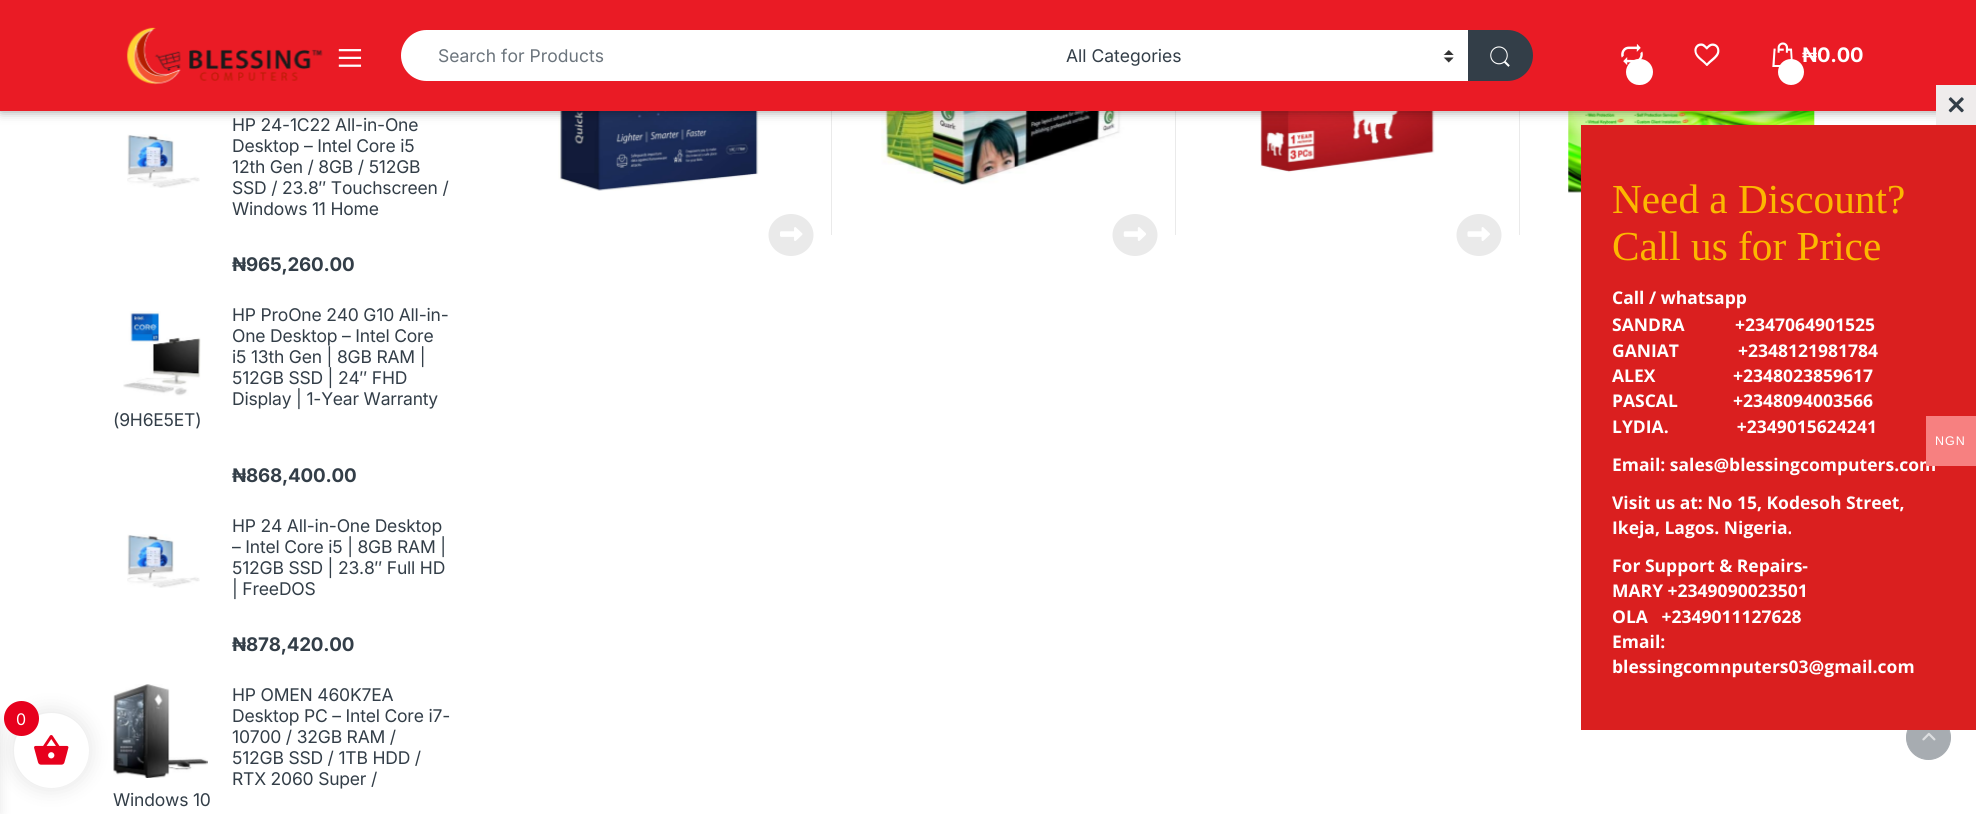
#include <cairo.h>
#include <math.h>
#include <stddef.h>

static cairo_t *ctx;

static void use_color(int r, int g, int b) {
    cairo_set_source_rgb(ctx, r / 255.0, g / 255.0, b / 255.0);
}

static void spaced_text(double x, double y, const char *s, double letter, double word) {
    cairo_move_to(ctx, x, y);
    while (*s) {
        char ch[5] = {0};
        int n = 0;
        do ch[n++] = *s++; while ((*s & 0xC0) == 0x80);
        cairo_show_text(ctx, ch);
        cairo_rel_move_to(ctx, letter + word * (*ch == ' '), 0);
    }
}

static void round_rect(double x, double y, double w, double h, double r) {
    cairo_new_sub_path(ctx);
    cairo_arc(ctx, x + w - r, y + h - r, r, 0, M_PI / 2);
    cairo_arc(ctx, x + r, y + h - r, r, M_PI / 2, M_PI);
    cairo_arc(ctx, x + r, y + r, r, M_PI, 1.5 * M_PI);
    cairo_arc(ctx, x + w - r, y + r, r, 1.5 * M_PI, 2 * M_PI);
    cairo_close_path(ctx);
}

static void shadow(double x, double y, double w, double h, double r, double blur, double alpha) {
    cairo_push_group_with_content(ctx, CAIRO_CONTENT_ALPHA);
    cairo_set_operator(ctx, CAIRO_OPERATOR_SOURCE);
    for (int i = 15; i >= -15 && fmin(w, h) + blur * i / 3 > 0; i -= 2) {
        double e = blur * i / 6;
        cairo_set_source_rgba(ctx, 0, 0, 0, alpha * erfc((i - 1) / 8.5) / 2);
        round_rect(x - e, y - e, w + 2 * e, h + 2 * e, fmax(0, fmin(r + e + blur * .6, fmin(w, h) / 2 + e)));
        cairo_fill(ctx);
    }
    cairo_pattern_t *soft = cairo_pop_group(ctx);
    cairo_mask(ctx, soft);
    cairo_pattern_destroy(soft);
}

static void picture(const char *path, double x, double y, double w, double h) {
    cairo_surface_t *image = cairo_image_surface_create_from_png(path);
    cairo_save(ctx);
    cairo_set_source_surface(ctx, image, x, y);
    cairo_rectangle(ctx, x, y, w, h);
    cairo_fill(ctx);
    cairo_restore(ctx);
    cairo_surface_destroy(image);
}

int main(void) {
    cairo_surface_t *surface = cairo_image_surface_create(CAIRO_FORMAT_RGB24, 1976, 814);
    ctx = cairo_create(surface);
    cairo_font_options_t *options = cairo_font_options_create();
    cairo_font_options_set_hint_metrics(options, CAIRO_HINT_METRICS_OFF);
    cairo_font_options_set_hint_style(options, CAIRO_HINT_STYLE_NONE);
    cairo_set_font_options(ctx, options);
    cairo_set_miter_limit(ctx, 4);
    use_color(255, 255, 255);
    cairo_paint(ctx);
    picture("img11.png", 558, 111, 203, 80);
    use_color(234, 234, 234);
    cairo_rectangle(ctx, 831, 111, 1, 124);
    cairo_fill(ctx);
    picture("img13.png", 881, 111, 244, 74);
    cairo_rectangle(ctx, 1175, 111, 1, 124);
    cairo_fill(ctx);
    picture("img15.png", 1260, 111, 175, 62);
    cairo_rectangle(ctx, 1519, 111, 1, 124);
    cairo_fill(ctx);
    picture("img17.png", 1568, 111, 247, 82);
    use_color(0, 0, 0);
    shadow(1, 1, 1974, 109, 0, 6, 0.5);
    use_color(234, 27, 37);
    cairo_rectangle(ctx, 0, 0, 1976, 111);
    cairo_fill(ctx);
    picture("img1.png", 126, 27, 197, 58);
    picture("img2.png", 338, 49, 24, 18);
    use_color(255, 255, 255);
    cairo_new_path(ctx);
    cairo_move_to(ctx, 426.5, 30);
    cairo_line_to(ctx, 1053, 30);
    cairo_line_to(ctx, 1053, 81);
    cairo_line_to(ctx, 426.5, 81);
    cairo_curve_to(ctx, 412.5, 81, 401, 69.5, 401, 55.5);
    cairo_curve_to(ctx, 401, 41.5, 412.5, 30, 426.5, 30);
    cairo_close_path(ctx);
    cairo_fill(ctx);
    cairo_select_font_face(ctx, "Inter", CAIRO_FONT_SLANT_NORMAL, CAIRO_FONT_WEIGHT_NORMAL);
    cairo_set_font_size(ctx, 17.5);
    use_color(108, 117, 125);
    cairo_move_to(ctx, 438, 62);
    cairo_show_text(ctx, "Search for Products");
    use_color(255, 255, 255);
    cairo_rectangle(ctx, 1053, 30, 415, 51);
    cairo_fill(ctx);
    picture("img3.png", 1443, 50, 11, 13);
    use_color(51, 62, 72);
    cairo_move_to(ctx, 1066, 62);
    cairo_show_text(ctx, "All Categories");
    cairo_new_path(ctx);
    cairo_move_to(ctx, 1468, 30);
    cairo_line_to(ctx, 1507.5, 30);
    cairo_curve_to(ctx, 1521.5, 30, 1533, 41.5, 1533, 55.5);
    cairo_curve_to(ctx, 1533, 69.5, 1521.5, 81, 1507.5, 81);
    cairo_line_to(ctx, 1468, 81);
    cairo_close_path(ctx);
    cairo_fill(ctx);
    picture("img4.png", 1490, 46, 20, 21);
    picture("img5.png", 1621, 44, 22, 21);
    use_color(255, 255, 255);
    round_rect(1626, 59, 27, 26, 13);
    cairo_fill(ctx);
    picture("img6.png", 1694, 43, 26, 23);
    picture("img7.png", 1772, 42, 21, 25);
    cairo_select_font_face(ctx, "Inter", CAIRO_FONT_SLANT_NORMAL, CAIRO_FONT_WEIGHT_BOLD);
    cairo_set_font_size(ctx, 20);
    spaced_text(1802, 62, "₦0.00", -0.2, 0);
    cairo_new_path(ctx);
    cairo_arc(ctx, 1791, 72, 13, 0, 2 * M_PI);
    cairo_fill(ctx);
    picture("img8.png", 127, 134, 73, 54);
    cairo_select_font_face(ctx, "Inter", CAIRO_FONT_SLANT_NORMAL, CAIRO_FONT_WEIGHT_NORMAL);
    cairo_set_font_size(ctx, 17.5);
    use_color(51, 62, 72);
    spaced_text(232, 131, "HP 24-1C22 All-in-One", -0.2, 0);
    spaced_text(232, 152, "Desktop – Intel Core i5", -0.2, 0);
    spaced_text(232, 173, "12th Gen / 8GB / 512GB", -0.2, 0);
    spaced_text(232, 194, "SSD / 23.8″ Touchscreen /", -0.2, 0);
    spaced_text(232, 215, "Windows 11 Home", -0.2, 0);
    cairo_select_font_face(ctx, "Inter", CAIRO_FONT_SLANT_NORMAL, CAIRO_FONT_WEIGHT_BOLD);
    cairo_set_font_size(ctx, 18.75);
    spaced_text(232, 271, "₦965,260.00", -0.2, 0);
    cairo_select_font_face(ctx, "Inter", CAIRO_FONT_SLANT_NORMAL, CAIRO_FONT_WEIGHT_NORMAL);
    cairo_set_font_size(ctx, 17.5);
    spaced_text(232, 321, "HP ProOne 240 G10 All-in-", -0.2, 0);
    spaced_text(232, 342, "One Desktop – Intel Core", -0.2, 0);
    spaced_text(232, 363, "i5 13th Gen | 8GB RAM |", -0.2, 0);
    spaced_text(232, 384, "512GB SSD | 24″ FHD", -0.2, 0);
    spaced_text(232, 405, "Display | 1-Year Warranty", -0.2, 0);
    spaced_text(113, 426, "(9H6E5ET)", -0.2, 0);
    picture("img9.png", 123, 311, 78, 85);
    cairo_select_font_face(ctx, "Inter", CAIRO_FONT_SLANT_NORMAL, CAIRO_FONT_WEIGHT_BOLD);
    cairo_set_font_size(ctx, 18.75);
    spaced_text(232, 482, "₦868,400.00", -0.2, 0);
    picture("img8.png", 127, 534, 73, 54);
    cairo_select_font_face(ctx, "Inter", CAIRO_FONT_SLANT_NORMAL, CAIRO_FONT_WEIGHT_NORMAL);
    cairo_set_font_size(ctx, 17.5);
    spaced_text(232, 532, "HP 24 All-in-One Desktop", -0.2, 0);
    spaced_text(232, 553, "– Intel Core i5 | 8GB RAM |", -0.2, 0);
    spaced_text(232, 574, "512GB SSD | 23.8″ Full HD", -0.2, 0);
    spaced_text(232, 595, "| FreeDOS", -0.2, 0);
    cairo_select_font_face(ctx, "Inter", CAIRO_FONT_SLANT_NORMAL, CAIRO_FONT_WEIGHT_BOLD);
    cairo_set_font_size(ctx, 18.75);
    spaced_text(232, 651, "₦878,420.00", -0.2, 0);
    picture("img10.png", 113, 684, 95, 94);
    cairo_select_font_face(ctx, "Inter", CAIRO_FONT_SLANT_NORMAL, CAIRO_FONT_WEIGHT_NORMAL);
    cairo_set_font_size(ctx, 17.5);
    spaced_text(232, 701, "HP OMEN 460K7EA", -0.2, 0);
    spaced_text(232, 722, "Desktop PC – Intel Core i7-", -0.2, 0);
    spaced_text(232, 743, "10700 / 32GB RAM /", -0.2, 0);
    spaced_text(232, 764, "512GB SSD / 1TB HDD /", -0.2, 0);
    spaced_text(232, 785, "RTX 2060 Super /", -0.2, 0);
    spaced_text(113, 806, "Windows 10", -0.2, 0);
    use_color(234, 234, 234);
    cairo_new_path(ctx);
    cairo_move_to(ctx, 791, 214);
    cairo_curve_to(ctx, 803.5, 214, 813.5, 223.5, 813.5, 235);
    cairo_curve_to(ctx, 813.5, 246.5, 803.5, 256, 791, 256);
    cairo_curve_to(ctx, 778.5, 256, 768.5, 246.5, 768.5, 235);
    cairo_curve_to(ctx, 768.5, 223.5, 778.5, 214, 791, 214);
    cairo_close_path(ctx);
    cairo_fill(ctx);
    picture("img12.png", 780, 227, 23, 14);
    cairo_new_path(ctx);
    cairo_move_to(ctx, 1135, 214);
    cairo_curve_to(ctx, 1147.5, 214, 1157.5, 223.5, 1157.5, 235);
    cairo_curve_to(ctx, 1157.5, 246.5, 1147.5, 256, 1135, 256);
    cairo_curve_to(ctx, 1122.5, 256, 1112.5, 246.5, 1112.5, 235);
    cairo_curve_to(ctx, 1112.5, 223.5, 1122.5, 214, 1135, 214);
    cairo_close_path(ctx);
    cairo_fill(ctx);
    picture("img14.png", 1123, 227, 23, 14);
    cairo_new_path(ctx);
    cairo_move_to(ctx, 1479, 214);
    cairo_curve_to(ctx, 1491.5, 214, 1501.5, 223.5, 1501.5, 235);
    cairo_curve_to(ctx, 1501.5, 246.5, 1491.5, 256, 1479, 256);
    cairo_curve_to(ctx, 1466.5, 256, 1456.5, 246.5, 1456.5, 235);
    cairo_curve_to(ctx, 1456.5, 223.5, 1466.5, 214, 1479, 214);
    cairo_close_path(ctx);
    cairo_fill(ctx);
    picture("img16.png", 1467, 227, 23, 14);
    use_color(167, 172, 177);
    cairo_arc(ctx, 1928.5, 737.5, 22, 0, 2 * M_PI);
    cairo_fill_preserve(ctx);
    cairo_set_line_width(ctx, 1);
    cairo_stroke(ctx);
    use_color(218, 31, 31);
    cairo_rectangle(ctx, 1581, 125, 395, 605);
    cairo_fill(ctx);
    use_color(239, 236, 236);
    cairo_rectangle(ctx, 1936, 85, 40, 40);
    cairo_fill(ctx);
    picture("img18.png", 1948, 97, 16, 16);
    cairo_select_font_face(ctx, "Liberation Serif", CAIRO_FONT_SLANT_NORMAL, CAIRO_FONT_WEIGHT_NORMAL);
    cairo_set_font_size(ctx, 41.25);
    use_color(252, 184, 0);
    cairo_move_to(ctx, 1612, 213);
    cairo_show_text(ctx, "Need a Discount?");
    cairo_move_to(ctx, 1612, 260);
    cairo_show_text(ctx, "Call us for Price");
    cairo_select_font_face(ctx, "Open Sans", CAIRO_FONT_SLANT_NORMAL, CAIRO_FONT_WEIGHT_BOLD);
    cairo_set_font_size(ctx, 17.5);
    use_color(255, 255, 255);
    cairo_move_to(ctx, 1612, 304);
    cairo_show_text(ctx, "Call / whatsapp");
    cairo_move_to(ctx, 1612, 331);
    cairo_show_text(ctx, "SANDRA");
    cairo_move_to(ctx, 1735, 331);
    cairo_show_text(ctx, "+2347064901525");
    cairo_move_to(ctx, 1612, 357);
    cairo_show_text(ctx, "GANIAT");
    cairo_move_to(ctx, 1738, 357);
    cairo_show_text(ctx, "+2348121981784");
    cairo_move_to(ctx, 1612, 382);
    cairo_show_text(ctx, "ALEX");
    cairo_move_to(ctx, 1733, 382);
    cairo_show_text(ctx, "+2348023859617");
    cairo_move_to(ctx, 1612, 407);
    cairo_show_text(ctx, "PASCAL");
    cairo_move_to(ctx, 1733, 407);
    cairo_show_text(ctx, "+2348094003566");
    cairo_move_to(ctx, 1612, 433);
    cairo_show_text(ctx, "LYDIA.               +2349015624241");
    cairo_move_to(ctx, 1612, 471);
    cairo_show_text(ctx, "Email: sales@blessingcomputers.com");
    cairo_move_to(ctx, 1612, 509);
    cairo_show_text(ctx, "Visit us at: No 15, Kodesoh Street,");
    cairo_move_to(ctx, 1612, 534);
    cairo_show_text(ctx, "Ikeja, Lagos. Nigeria.");
    cairo_move_to(ctx, 1612, 572);
    cairo_show_text(ctx, "For Support & Repairs-");
    cairo_move_to(ctx, 1612, 597);
    cairo_show_text(ctx, "MARY +2349090023501");
    cairo_move_to(ctx, 1612, 623);
    cairo_show_text(ctx, "OLA   +2349011127628");
    cairo_move_to(ctx, 1612, 648);
    cairo_show_text(ctx, "Email:");
    cairo_move_to(ctx, 1612, 673);
    cairo_show_text(ctx, "blessingcomnputers03@gmail.com");
    use_color(247, 128, 128);
    cairo_rectangle(ctx, 1926, 416, 50, 50);
    cairo_fill(ctx);
    cairo_select_font_face(ctx, "Liberation Sans", CAIRO_FONT_SLANT_NORMAL, CAIRO_FONT_WEIGHT_NORMAL);
    cairo_set_font_size(ctx, 12.5);
    use_color(255, 255, 255);
    spaced_text(1935, 445, "NGN", 1, 0);
    use_color(0, 0, 0);
    shadow(-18, 720, 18, 94, 0, 6, 0.1);
    shadow(11, 710, 80, 80, 40, 9.5, 0.1);
    use_color(255, 255, 255);
    cairo_arc(ctx, 51.5, 750.5, 37.5, 0, 2 * M_PI);
    cairo_fill(ctx);
    picture("img19.png", 34, 735, 35, 30);
    use_color(231, 0, 29);
    cairo_arc(ctx, 21.5, 718.5, 17.5, 0, 2 * M_PI);
    cairo_fill(ctx);
    cairo_select_font_face(ctx, "Inter", CAIRO_FONT_SLANT_NORMAL, CAIRO_FONT_WEIGHT_NORMAL);
    cairo_set_font_size(ctx, 16);
    use_color(255, 255, 255);
    spaced_text(16, 725, "0", -0.2, 0);
    picture("img20.png", 1922, 732, 14, 9);
    cairo_surface_write_to_png(surface, "result.png");
    cairo_font_options_destroy(options);
    cairo_destroy(ctx);
    cairo_surface_destroy(surface);
    return 0;
}
